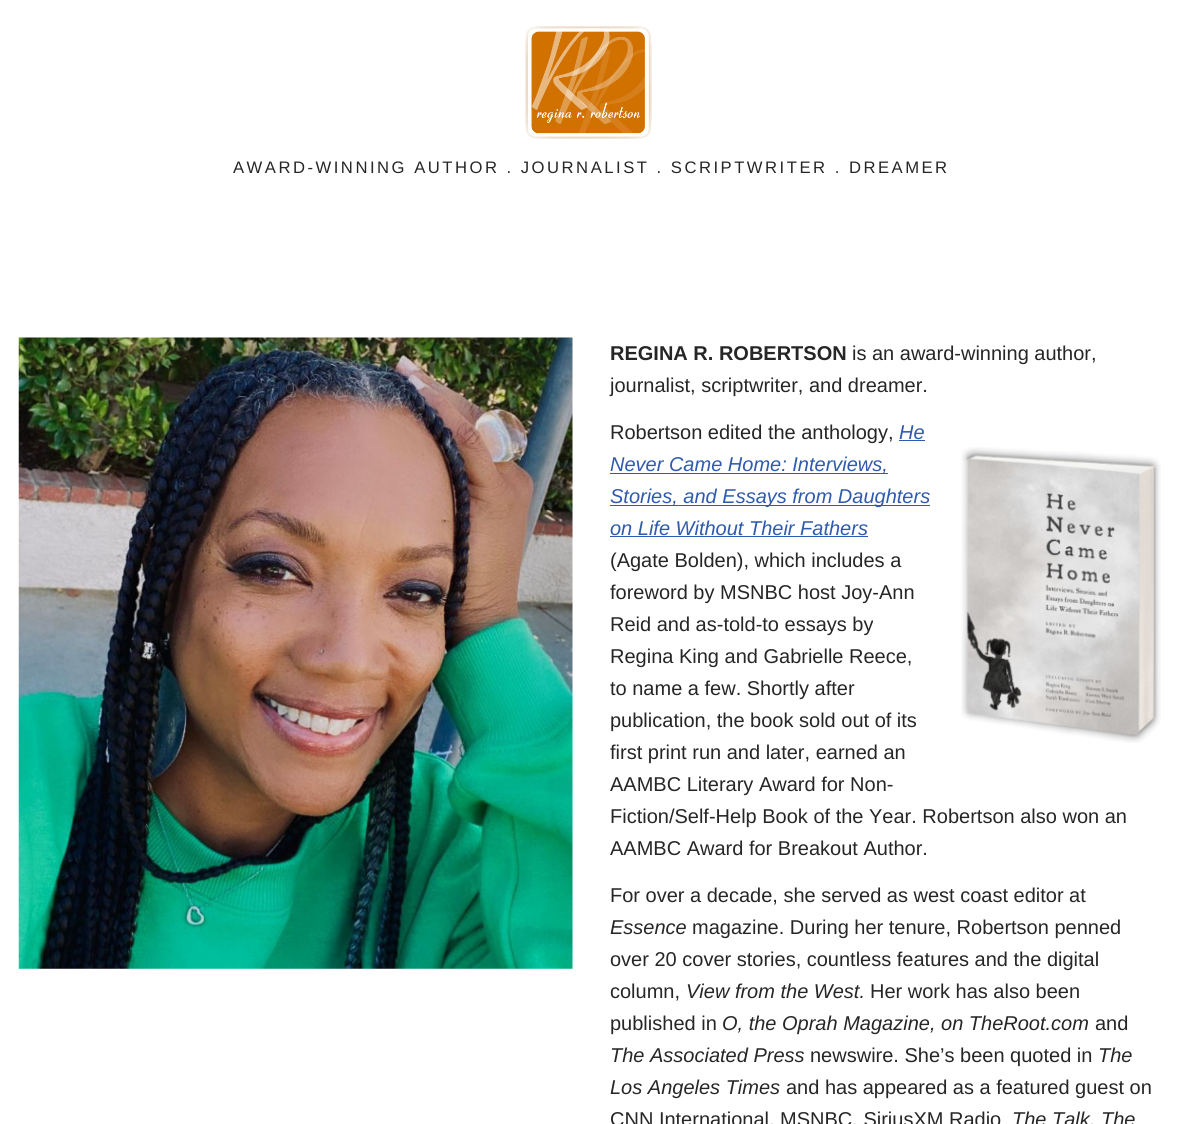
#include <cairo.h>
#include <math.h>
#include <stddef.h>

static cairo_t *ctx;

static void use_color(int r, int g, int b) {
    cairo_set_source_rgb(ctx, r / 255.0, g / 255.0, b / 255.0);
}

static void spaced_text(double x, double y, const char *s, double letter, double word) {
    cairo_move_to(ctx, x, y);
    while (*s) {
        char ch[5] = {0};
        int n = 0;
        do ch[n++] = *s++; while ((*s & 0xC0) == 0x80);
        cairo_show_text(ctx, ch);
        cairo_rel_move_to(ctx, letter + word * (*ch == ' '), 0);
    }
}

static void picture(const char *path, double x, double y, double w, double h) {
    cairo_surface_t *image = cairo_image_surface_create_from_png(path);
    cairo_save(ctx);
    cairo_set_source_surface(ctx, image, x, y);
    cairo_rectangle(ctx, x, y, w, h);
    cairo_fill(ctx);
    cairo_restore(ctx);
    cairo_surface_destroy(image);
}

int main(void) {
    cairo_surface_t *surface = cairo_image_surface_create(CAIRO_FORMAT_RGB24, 1182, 1124);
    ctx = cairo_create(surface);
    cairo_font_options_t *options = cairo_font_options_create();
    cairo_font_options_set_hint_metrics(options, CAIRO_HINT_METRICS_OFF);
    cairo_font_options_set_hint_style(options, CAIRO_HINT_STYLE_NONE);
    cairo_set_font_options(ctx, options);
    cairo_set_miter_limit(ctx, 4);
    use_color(255, 255, 255);
    cairo_paint(ctx);
    picture("img1.png", 525, 26, 127, 113);
    cairo_select_font_face(ctx, "Liberation Sans", CAIRO_FONT_SLANT_NORMAL, CAIRO_FONT_WEIGHT_NORMAL);
    cairo_set_font_size(ctx, 16.65);
    use_color(39, 38, 38);
    spaced_text(233, 173, "AWARD-WINNING AUTHOR . JOURNALIST . SCRIPTWRITER . DREAMER", 2.5, 0);
    picture("img2.png", 18, 337, 555, 632);
    cairo_select_font_face(ctx, "Liberation Sans", CAIRO_FONT_SLANT_NORMAL, CAIRO_FONT_WEIGHT_BOLD);
    cairo_set_font_size(ctx, 20);
    cairo_move_to(ctx, 610, 360);
    cairo_show_text(ctx, "REGINA R. ROBERTSON");
    cairo_select_font_face(ctx, "Liberation Sans", CAIRO_FONT_SLANT_NORMAL, CAIRO_FONT_WEIGHT_NORMAL);
    cairo_move_to(ctx, 852, 360);
    cairo_show_text(ctx, "is an award-winning author,");
    cairo_move_to(ctx, 610, 392);
    cairo_show_text(ctx, "journalist, scriptwriter, and dreamer.");
    cairo_move_to(ctx, 610, 439);
    cairo_show_text(ctx, "Robertson edited the anthology,");
    cairo_select_font_face(ctx, "Liberation Sans", CAIRO_FONT_SLANT_ITALIC, CAIRO_FONT_WEIGHT_NORMAL);
    use_color(47, 90, 174);
    cairo_move_to(ctx, 899, 439);
    cairo_show_text(ctx, "He");
    cairo_rectangle(ctx, 899, 440, 26, 1);
    cairo_fill(ctx);
    cairo_rectangle(ctx, 610, 473, 278, 1);
    cairo_fill(ctx);
    cairo_move_to(ctx, 610, 471);
    cairo_show_text(ctx, "Never Came Home: Interviews,");
    picture("img3.png", 961, 447, 200, 296);
    cairo_rectangle(ctx, 610, 505, 320, 1);
    cairo_fill(ctx);
    cairo_move_to(ctx, 610, 503);
    cairo_show_text(ctx, "Stories, and Essays from Daughters");
    cairo_move_to(ctx, 610, 535);
    cairo_show_text(ctx, "on Life Without Their Fathers");
    cairo_rectangle(ctx, 610, 536, 258, 1);
    cairo_fill(ctx);
    cairo_select_font_face(ctx, "Liberation Sans", CAIRO_FONT_SLANT_NORMAL, CAIRO_FONT_WEIGHT_NORMAL);
    use_color(39, 38, 38);
    cairo_move_to(ctx, 610, 567);
    cairo_show_text(ctx, "(Agate Bolden), which includes a");
    cairo_move_to(ctx, 610, 599);
    cairo_show_text(ctx, "foreword by MSNBC host Joy-Ann");
    cairo_move_to(ctx, 610, 631);
    cairo_show_text(ctx, "Reid and as-told-to essays by");
    cairo_move_to(ctx, 610, 663);
    cairo_show_text(ctx, "Regina King and Gabrielle Reece,");
    cairo_move_to(ctx, 610, 695);
    cairo_show_text(ctx, "to name a few. Shortly after");
    cairo_move_to(ctx, 610, 727);
    cairo_show_text(ctx, "publication, the book sold out of its");
    cairo_move_to(ctx, 610, 759);
    cairo_show_text(ctx, "first print run and later, earned an");
    cairo_move_to(ctx, 610, 791);
    cairo_show_text(ctx, "AAMBC Literary Award for Non-");
    cairo_move_to(ctx, 610, 823);
    cairo_show_text(ctx, "Fiction/Self-Help Book of the Year. Robertson also won an");
    cairo_move_to(ctx, 610, 855);
    cairo_show_text(ctx, "AAMBC Award for Breakout Author.");
    cairo_move_to(ctx, 610, 902);
    cairo_show_text(ctx, "For over a decade, she served as west coast editor at");
    cairo_select_font_face(ctx, "Liberation Sans", CAIRO_FONT_SLANT_ITALIC, CAIRO_FONT_WEIGHT_NORMAL);
    cairo_move_to(ctx, 610, 934);
    cairo_show_text(ctx, "Essence");
    cairo_select_font_face(ctx, "Liberation Sans", CAIRO_FONT_SLANT_NORMAL, CAIRO_FONT_WEIGHT_NORMAL);
    cairo_move_to(ctx, 692, 934);
    cairo_show_text(ctx, "magazine. During her tenure, Robertson penned");
    cairo_move_to(ctx, 610, 966);
    cairo_show_text(ctx, "over 20 cover stories, countless features and the digital");
    cairo_move_to(ctx, 610, 998);
    cairo_show_text(ctx, "column,");
    cairo_select_font_face(ctx, "Liberation Sans", CAIRO_FONT_SLANT_ITALIC, CAIRO_FONT_WEIGHT_NORMAL);
    cairo_move_to(ctx, 686, 998);
    cairo_show_text(ctx, "View from the West.");
    cairo_select_font_face(ctx, "Liberation Sans", CAIRO_FONT_SLANT_NORMAL, CAIRO_FONT_WEIGHT_NORMAL);
    cairo_move_to(ctx, 870, 998);
    cairo_show_text(ctx, "Her work has also been");
    cairo_move_to(ctx, 610, 1030);
    cairo_show_text(ctx, "published in");
    cairo_select_font_face(ctx, "Liberation Sans", CAIRO_FONT_SLANT_ITALIC, CAIRO_FONT_WEIGHT_NORMAL);
    cairo_move_to(ctx, 722, 1030);
    cairo_show_text(ctx, "O, the Oprah Magazine, on TheRoot.com");
    cairo_select_font_face(ctx, "Liberation Sans", CAIRO_FONT_SLANT_NORMAL, CAIRO_FONT_WEIGHT_NORMAL);
    cairo_move_to(ctx, 1095, 1030);
    cairo_show_text(ctx, "and");
    cairo_select_font_face(ctx, "Liberation Sans", CAIRO_FONT_SLANT_ITALIC, CAIRO_FONT_WEIGHT_NORMAL);
    cairo_move_to(ctx, 610, 1062);
    cairo_show_text(ctx, "The Associated Press");
    cairo_select_font_face(ctx, "Liberation Sans", CAIRO_FONT_SLANT_NORMAL, CAIRO_FONT_WEIGHT_NORMAL);
    cairo_move_to(ctx, 810, 1062);
    cairo_show_text(ctx, "newswire. She’s been quoted in");
    cairo_select_font_face(ctx, "Liberation Sans", CAIRO_FONT_SLANT_ITALIC, CAIRO_FONT_WEIGHT_NORMAL);
    cairo_move_to(ctx, 1098, 1062);
    cairo_show_text(ctx, "The");
    cairo_move_to(ctx, 610, 1094);
    cairo_show_text(ctx, "Los Angeles Times");
    cairo_select_font_face(ctx, "Liberation Sans", CAIRO_FONT_SLANT_NORMAL, CAIRO_FONT_WEIGHT_NORMAL);
    cairo_move_to(ctx, 786, 1094);
    cairo_show_text(ctx, "and has appeared as a featured guest on");
    cairo_move_to(ctx, 610, 1126);
    cairo_show_text(ctx, "CNN International, MSNBC, SiriusXM Radio");
    cairo_select_font_face(ctx, "Liberation Sans", CAIRO_FONT_SLANT_ITALIC, CAIRO_FONT_WEIGHT_NORMAL);
    cairo_move_to(ctx, 1012, 1126);
    cairo_show_text(ctx, "The Talk, The");
    cairo_surface_write_to_png(surface, "result.png");
    cairo_font_options_destroy(options);
    cairo_destroy(ctx);
    cairo_surface_destroy(surface);
    return 0;
}
